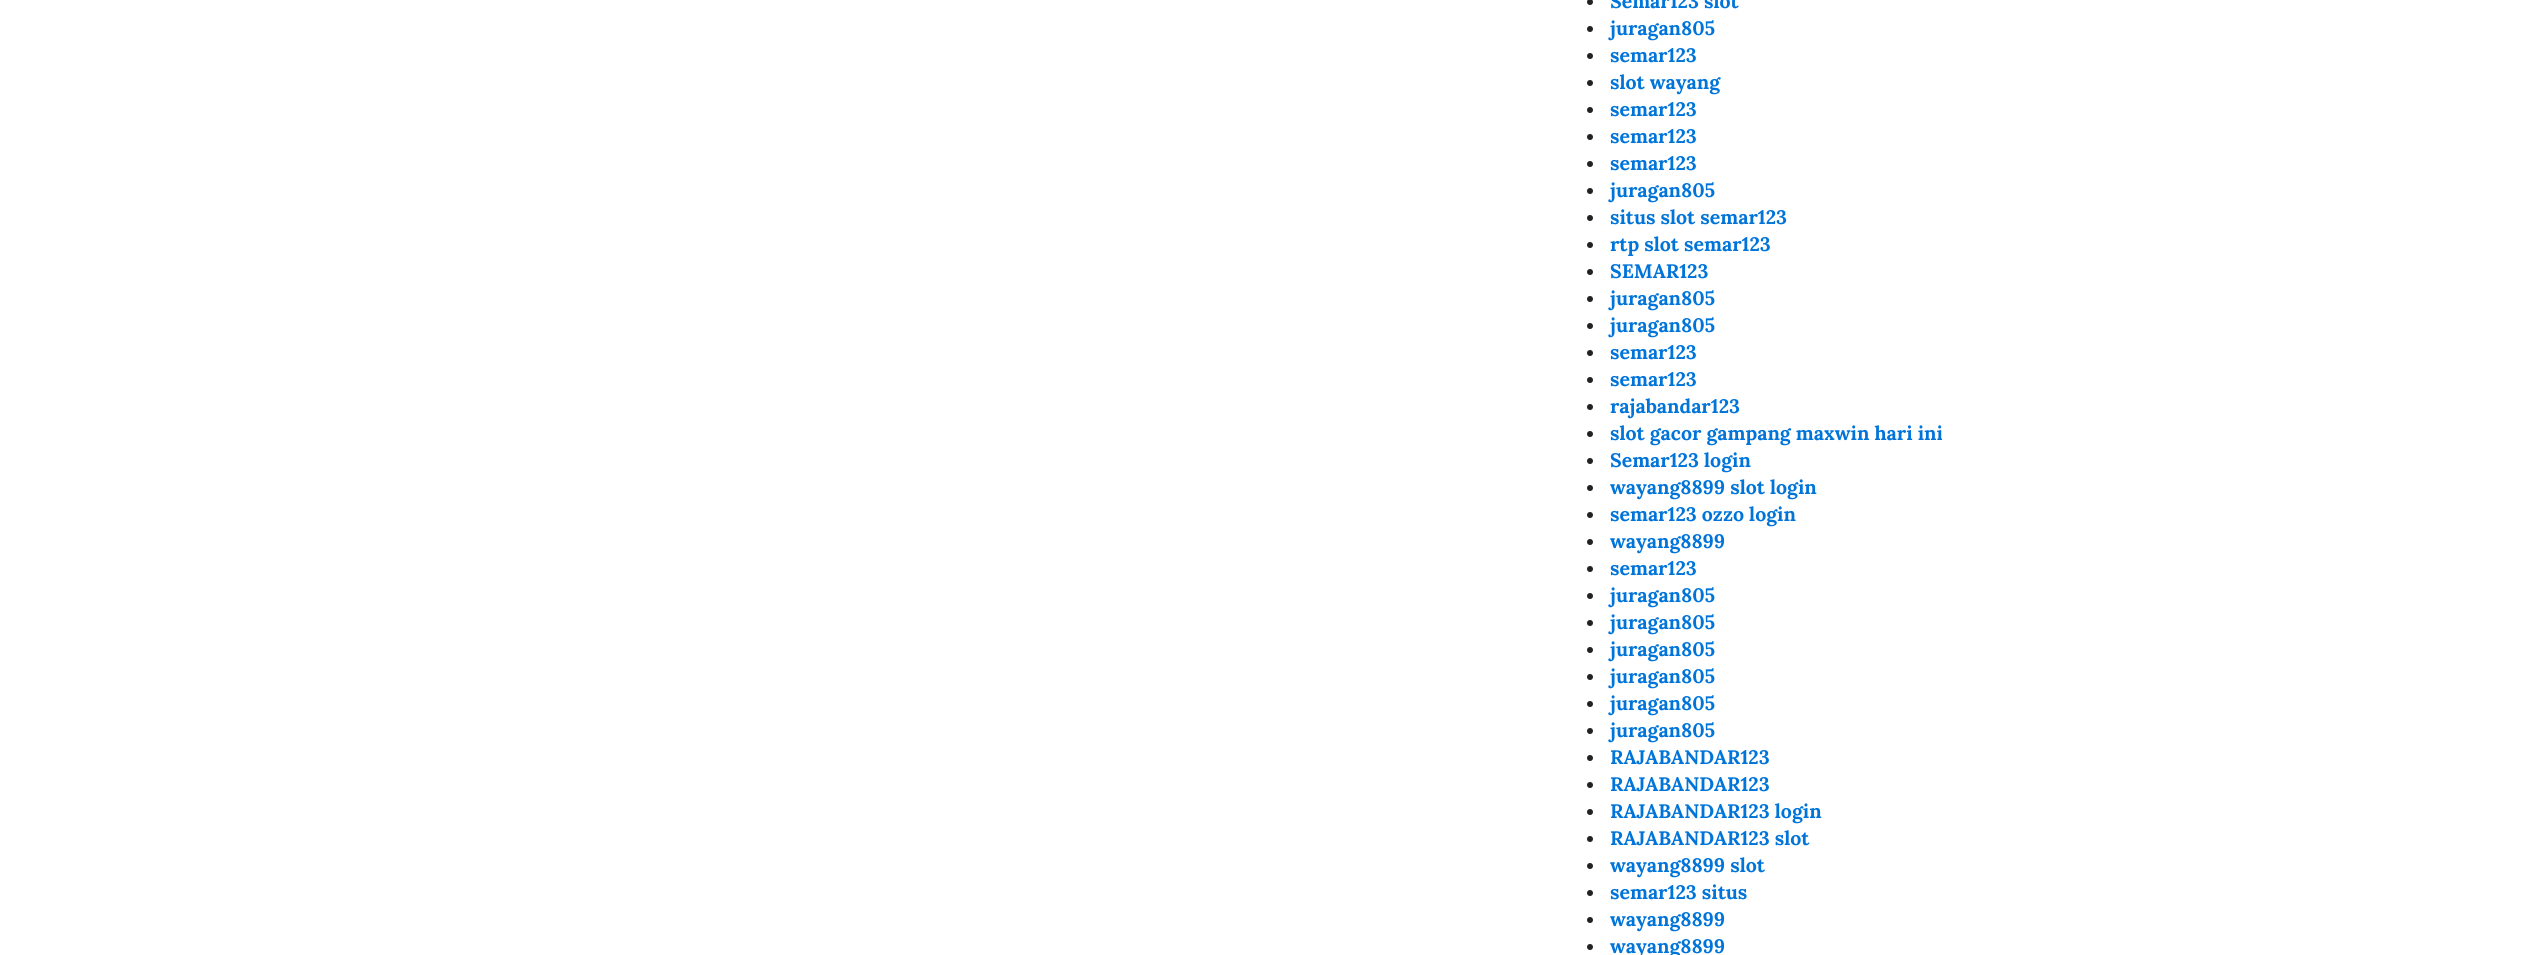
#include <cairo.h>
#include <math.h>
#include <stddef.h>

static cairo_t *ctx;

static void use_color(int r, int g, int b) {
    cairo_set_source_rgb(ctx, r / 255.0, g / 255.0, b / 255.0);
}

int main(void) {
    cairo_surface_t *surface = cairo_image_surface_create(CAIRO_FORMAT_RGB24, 2529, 955);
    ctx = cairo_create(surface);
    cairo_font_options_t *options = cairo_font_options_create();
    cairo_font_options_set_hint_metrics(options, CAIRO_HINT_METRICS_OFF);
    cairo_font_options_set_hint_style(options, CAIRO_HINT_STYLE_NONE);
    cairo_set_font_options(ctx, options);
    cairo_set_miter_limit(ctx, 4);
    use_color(255, 255, 255);
    cairo_paint(ctx);
    use_color(34, 34, 34);
    cairo_arc(ctx, 1590, 2, 3, 0, 2 * M_PI);
    cairo_fill(ctx);
    cairo_select_font_face(ctx, "Lora", CAIRO_FONT_SLANT_NORMAL, CAIRO_FONT_WEIGHT_BOLD);
    cairo_set_font_size(ctx, 19.5);
    use_color(0, 116, 217);
    cairo_move_to(ctx, 1610, 8);
    cairo_show_text(ctx, "Semar123 slot");
    use_color(34, 34, 34);
    cairo_new_path(ctx);
    cairo_arc(ctx, 1590, 29, 3, 0, 2 * M_PI);
    cairo_fill(ctx);
    use_color(0, 116, 217);
    cairo_move_to(ctx, 1610, 35);
    cairo_show_text(ctx, "juragan805");
    use_color(34, 34, 34);
    cairo_new_path(ctx);
    cairo_arc(ctx, 1590, 56, 3, 0, 2 * M_PI);
    cairo_fill(ctx);
    use_color(0, 116, 217);
    cairo_move_to(ctx, 1610, 62);
    cairo_show_text(ctx, "semar123");
    use_color(34, 34, 34);
    cairo_new_path(ctx);
    cairo_arc(ctx, 1590, 83, 3, 0, 2 * M_PI);
    cairo_fill(ctx);
    use_color(0, 116, 217);
    cairo_move_to(ctx, 1610, 89);
    cairo_show_text(ctx, "slot wayang");
    use_color(34, 34, 34);
    cairo_new_path(ctx);
    cairo_arc(ctx, 1590, 110, 3, 0, 2 * M_PI);
    cairo_fill(ctx);
    use_color(0, 116, 217);
    cairo_move_to(ctx, 1610, 116);
    cairo_show_text(ctx, "semar123");
    use_color(34, 34, 34);
    cairo_new_path(ctx);
    cairo_arc(ctx, 1590, 137, 3, 0, 2 * M_PI);
    cairo_fill(ctx);
    use_color(0, 116, 217);
    cairo_move_to(ctx, 1610, 143);
    cairo_show_text(ctx, "semar123");
    use_color(34, 34, 34);
    cairo_new_path(ctx);
    cairo_arc(ctx, 1590, 164, 3, 0, 2 * M_PI);
    cairo_fill(ctx);
    use_color(0, 116, 217);
    cairo_move_to(ctx, 1610, 170);
    cairo_show_text(ctx, "semar123");
    use_color(34, 34, 34);
    cairo_new_path(ctx);
    cairo_arc(ctx, 1590, 191, 3, 0, 2 * M_PI);
    cairo_fill(ctx);
    use_color(0, 116, 217);
    cairo_move_to(ctx, 1610, 197);
    cairo_show_text(ctx, "juragan805");
    use_color(34, 34, 34);
    cairo_new_path(ctx);
    cairo_arc(ctx, 1590, 218, 3, 0, 2 * M_PI);
    cairo_fill(ctx);
    use_color(0, 116, 217);
    cairo_move_to(ctx, 1610, 224);
    cairo_show_text(ctx, "situs slot semar123");
    use_color(34, 34, 34);
    cairo_new_path(ctx);
    cairo_arc(ctx, 1590, 245, 3, 0, 2 * M_PI);
    cairo_fill(ctx);
    use_color(0, 116, 217);
    cairo_move_to(ctx, 1610, 251);
    cairo_show_text(ctx, "rtp slot semar123");
    use_color(34, 34, 34);
    cairo_new_path(ctx);
    cairo_arc(ctx, 1590, 272, 3, 0, 2 * M_PI);
    cairo_fill(ctx);
    use_color(0, 116, 217);
    cairo_move_to(ctx, 1610, 278);
    cairo_show_text(ctx, "SEMAR123");
    use_color(34, 34, 34);
    cairo_new_path(ctx);
    cairo_arc(ctx, 1590, 299, 3, 0, 2 * M_PI);
    cairo_fill(ctx);
    use_color(0, 116, 217);
    cairo_move_to(ctx, 1610, 305);
    cairo_show_text(ctx, "juragan805");
    use_color(34, 34, 34);
    cairo_new_path(ctx);
    cairo_arc(ctx, 1590, 326, 3, 0, 2 * M_PI);
    cairo_fill(ctx);
    use_color(0, 116, 217);
    cairo_move_to(ctx, 1610, 332);
    cairo_show_text(ctx, "juragan805");
    use_color(34, 34, 34);
    cairo_new_path(ctx);
    cairo_arc(ctx, 1590, 353, 3, 0, 2 * M_PI);
    cairo_fill(ctx);
    use_color(0, 116, 217);
    cairo_move_to(ctx, 1610, 359);
    cairo_show_text(ctx, "semar123");
    use_color(34, 34, 34);
    cairo_new_path(ctx);
    cairo_arc(ctx, 1590, 380, 3, 0, 2 * M_PI);
    cairo_fill(ctx);
    use_color(0, 116, 217);
    cairo_move_to(ctx, 1610, 386);
    cairo_show_text(ctx, "semar123");
    use_color(34, 34, 34);
    cairo_new_path(ctx);
    cairo_arc(ctx, 1590, 407, 3, 0, 2 * M_PI);
    cairo_fill(ctx);
    use_color(0, 116, 217);
    cairo_move_to(ctx, 1610, 413);
    cairo_show_text(ctx, "rajabandar123");
    use_color(34, 34, 34);
    cairo_new_path(ctx);
    cairo_arc(ctx, 1590, 434, 3, 0, 2 * M_PI);
    cairo_fill(ctx);
    use_color(0, 116, 217);
    cairo_move_to(ctx, 1610, 440);
    cairo_show_text(ctx, "slot gacor gampang maxwin hari ini");
    use_color(34, 34, 34);
    cairo_new_path(ctx);
    cairo_arc(ctx, 1590, 461, 3, 0, 2 * M_PI);
    cairo_fill(ctx);
    use_color(0, 116, 217);
    cairo_move_to(ctx, 1610, 467);
    cairo_show_text(ctx, "Semar123 login");
    use_color(34, 34, 34);
    cairo_new_path(ctx);
    cairo_arc(ctx, 1590, 488, 3, 0, 2 * M_PI);
    cairo_fill(ctx);
    use_color(0, 116, 217);
    cairo_move_to(ctx, 1610, 494);
    cairo_show_text(ctx, "wayang8899 slot login");
    use_color(34, 34, 34);
    cairo_new_path(ctx);
    cairo_arc(ctx, 1590, 515, 3, 0, 2 * M_PI);
    cairo_fill(ctx);
    use_color(0, 116, 217);
    cairo_move_to(ctx, 1610, 521);
    cairo_show_text(ctx, "semar123 ozzo login");
    use_color(34, 34, 34);
    cairo_new_path(ctx);
    cairo_arc(ctx, 1590, 542, 3, 0, 2 * M_PI);
    cairo_fill(ctx);
    use_color(0, 116, 217);
    cairo_move_to(ctx, 1610, 548);
    cairo_show_text(ctx, "wayang8899");
    use_color(34, 34, 34);
    cairo_new_path(ctx);
    cairo_arc(ctx, 1590, 569, 3, 0, 2 * M_PI);
    cairo_fill(ctx);
    use_color(0, 116, 217);
    cairo_move_to(ctx, 1610, 575);
    cairo_show_text(ctx, "semar123");
    use_color(34, 34, 34);
    cairo_new_path(ctx);
    cairo_arc(ctx, 1590, 596, 3, 0, 2 * M_PI);
    cairo_fill(ctx);
    use_color(0, 116, 217);
    cairo_move_to(ctx, 1610, 602);
    cairo_show_text(ctx, "juragan805");
    use_color(34, 34, 34);
    cairo_new_path(ctx);
    cairo_arc(ctx, 1590, 623, 3, 0, 2 * M_PI);
    cairo_fill(ctx);
    use_color(0, 116, 217);
    cairo_move_to(ctx, 1610, 629);
    cairo_show_text(ctx, "juragan805");
    use_color(34, 34, 34);
    cairo_new_path(ctx);
    cairo_arc(ctx, 1590, 650, 3, 0, 2 * M_PI);
    cairo_fill(ctx);
    use_color(0, 116, 217);
    cairo_move_to(ctx, 1610, 656);
    cairo_show_text(ctx, "juragan805");
    use_color(34, 34, 34);
    cairo_new_path(ctx);
    cairo_arc(ctx, 1590, 677, 3, 0, 2 * M_PI);
    cairo_fill(ctx);
    use_color(0, 116, 217);
    cairo_move_to(ctx, 1610, 683);
    cairo_show_text(ctx, "juragan805");
    use_color(34, 34, 34);
    cairo_new_path(ctx);
    cairo_arc(ctx, 1590, 704, 3, 0, 2 * M_PI);
    cairo_fill(ctx);
    use_color(0, 116, 217);
    cairo_move_to(ctx, 1610, 710);
    cairo_show_text(ctx, "juragan805");
    use_color(34, 34, 34);
    cairo_new_path(ctx);
    cairo_arc(ctx, 1590, 731, 3, 0, 2 * M_PI);
    cairo_fill(ctx);
    use_color(0, 116, 217);
    cairo_move_to(ctx, 1610, 737);
    cairo_show_text(ctx, "juragan805");
    use_color(34, 34, 34);
    cairo_new_path(ctx);
    cairo_arc(ctx, 1590, 758, 3, 0, 2 * M_PI);
    cairo_fill(ctx);
    use_color(0, 116, 217);
    cairo_move_to(ctx, 1610, 764);
    cairo_show_text(ctx, "RAJABANDAR123");
    use_color(34, 34, 34);
    cairo_new_path(ctx);
    cairo_arc(ctx, 1590, 785, 3, 0, 2 * M_PI);
    cairo_fill(ctx);
    use_color(0, 116, 217);
    cairo_move_to(ctx, 1610, 791);
    cairo_show_text(ctx, "RAJABANDAR123");
    use_color(34, 34, 34);
    cairo_new_path(ctx);
    cairo_arc(ctx, 1590, 812, 3, 0, 2 * M_PI);
    cairo_fill(ctx);
    use_color(0, 116, 217);
    cairo_move_to(ctx, 1610, 818);
    cairo_show_text(ctx, "RAJABANDAR123 login");
    use_color(34, 34, 34);
    cairo_new_path(ctx);
    cairo_arc(ctx, 1590, 839, 3, 0, 2 * M_PI);
    cairo_fill(ctx);
    use_color(0, 116, 217);
    cairo_move_to(ctx, 1610, 845);
    cairo_show_text(ctx, "RAJABANDAR123 slot");
    use_color(34, 34, 34);
    cairo_new_path(ctx);
    cairo_arc(ctx, 1590, 866, 3, 0, 2 * M_PI);
    cairo_fill(ctx);
    use_color(0, 116, 217);
    cairo_move_to(ctx, 1610, 872);
    cairo_show_text(ctx, "wayang8899 slot");
    use_color(34, 34, 34);
    cairo_new_path(ctx);
    cairo_arc(ctx, 1590, 893, 3, 0, 2 * M_PI);
    cairo_fill(ctx);
    use_color(0, 116, 217);
    cairo_move_to(ctx, 1610, 899);
    cairo_show_text(ctx, "semar123 situs");
    use_color(34, 34, 34);
    cairo_new_path(ctx);
    cairo_arc(ctx, 1590, 920, 3, 0, 2 * M_PI);
    cairo_fill(ctx);
    use_color(0, 116, 217);
    cairo_move_to(ctx, 1610, 926);
    cairo_show_text(ctx, "wayang8899");
    use_color(34, 34, 34);
    cairo_new_path(ctx);
    cairo_arc(ctx, 1590, 947, 3, 0, 2 * M_PI);
    cairo_fill(ctx);
    use_color(0, 116, 217);
    cairo_move_to(ctx, 1610, 953);
    cairo_show_text(ctx, "wayang8899");
    cairo_surface_write_to_png(surface, "result.png");
    cairo_font_options_destroy(options);
    cairo_destroy(ctx);
    cairo_surface_destroy(surface);
    return 0;
}
